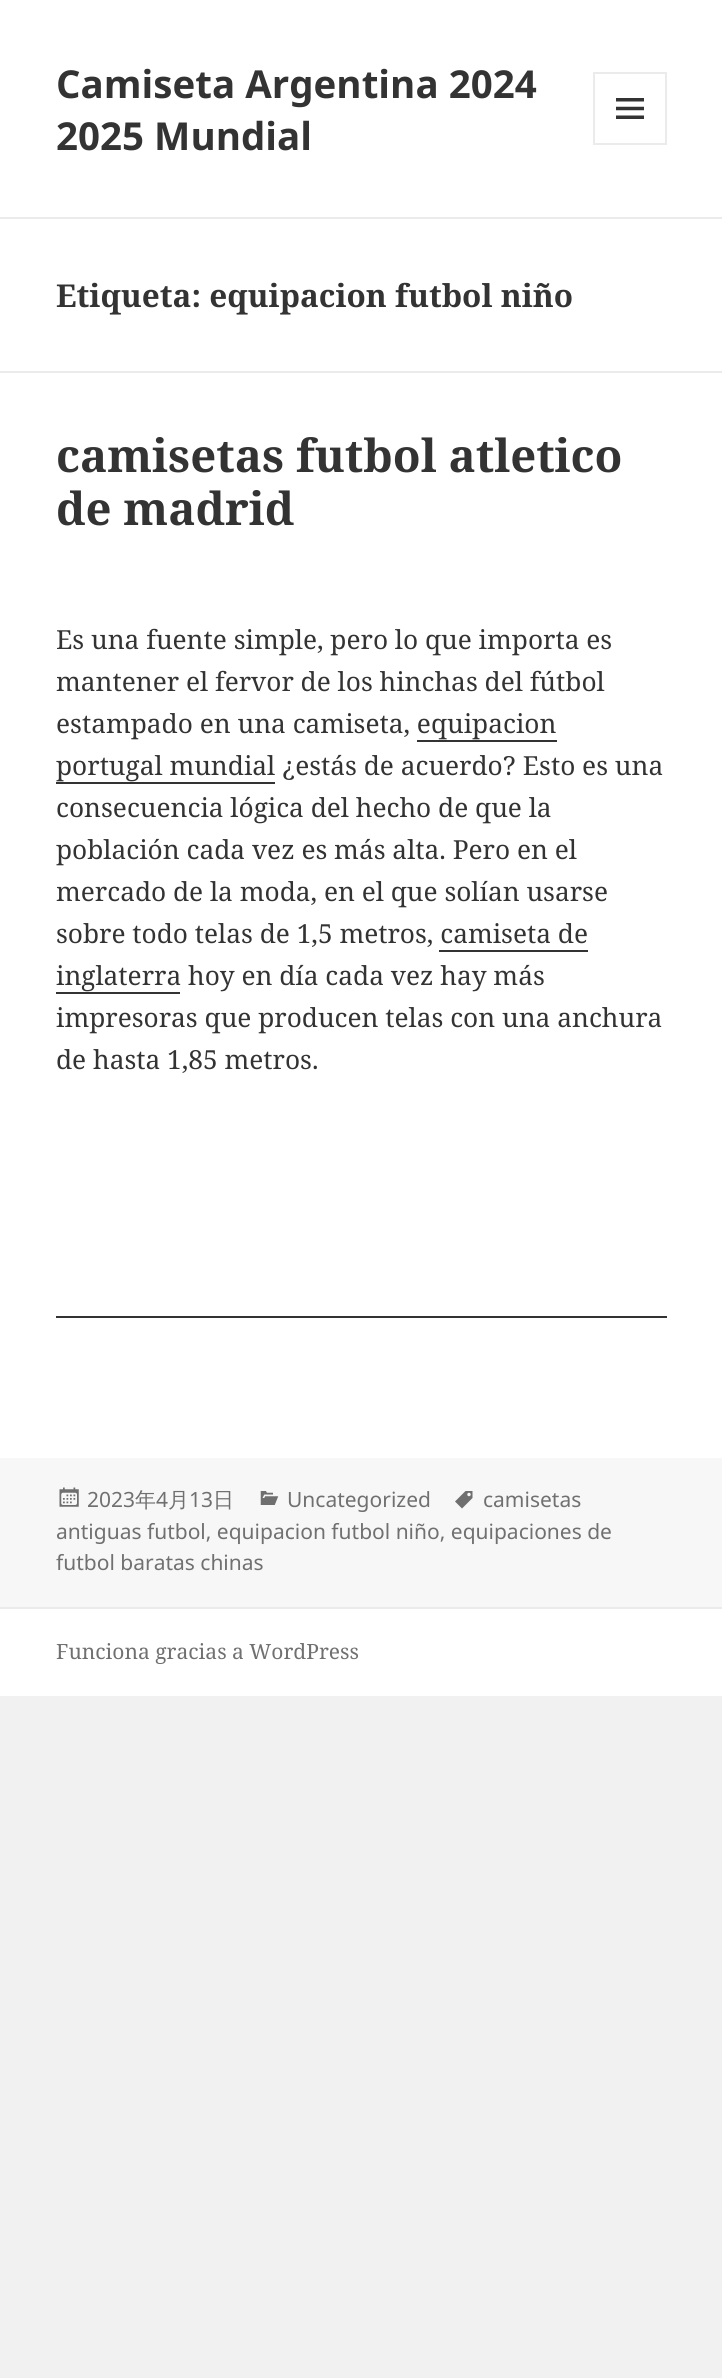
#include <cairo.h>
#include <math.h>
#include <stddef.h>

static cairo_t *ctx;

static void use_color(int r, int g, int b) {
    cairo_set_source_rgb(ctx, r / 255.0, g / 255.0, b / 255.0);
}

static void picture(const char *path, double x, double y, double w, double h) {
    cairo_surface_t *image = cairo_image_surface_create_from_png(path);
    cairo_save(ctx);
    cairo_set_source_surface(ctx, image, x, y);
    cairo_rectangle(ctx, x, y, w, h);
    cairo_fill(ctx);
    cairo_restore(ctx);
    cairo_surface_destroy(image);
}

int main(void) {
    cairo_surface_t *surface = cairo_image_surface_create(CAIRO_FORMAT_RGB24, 722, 2378);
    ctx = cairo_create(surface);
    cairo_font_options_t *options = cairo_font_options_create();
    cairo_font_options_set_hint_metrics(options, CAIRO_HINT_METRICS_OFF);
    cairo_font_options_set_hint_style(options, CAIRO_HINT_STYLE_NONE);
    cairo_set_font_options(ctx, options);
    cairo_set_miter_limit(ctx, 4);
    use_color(241, 241, 241);
    cairo_paint(ctx);
    use_color(255, 255, 255);
    cairo_rectangle(ctx, 0, 0, 722, 217);
    cairo_fill(ctx);
    use_color(235, 235, 235);
    cairo_rectangle(ctx, 0, 217, 722, 2);
    cairo_fill(ctx);
    cairo_select_font_face(ctx, "Noto Sans", CAIRO_FONT_SLANT_NORMAL, CAIRO_FONT_WEIGHT_BOLD);
    cairo_set_font_size(ctx, 38.5);
    use_color(51, 51, 51);
    cairo_move_to(ctx, 56, 98);
    cairo_show_text(ctx, "Camiseta Argentina 2024");
    cairo_move_to(ctx, 56, 150);
    cairo_show_text(ctx, "2025 Mundial");
    cairo_rectangle(ctx, 594, 73, 72, 71);
    use_color(235, 235, 235);
    cairo_stroke(ctx);
    picture("img1.png", 616, 98, 28, 21);
    use_color(255, 255, 255);
    cairo_rectangle(ctx, 0, 219, 722, 152);
    cairo_fill(ctx);
    use_color(235, 235, 235);
    cairo_rectangle(ctx, 0, 371, 722, 2);
    cairo_fill(ctx);
    cairo_select_font_face(ctx, "Noto Serif", CAIRO_FONT_SLANT_NORMAL, CAIRO_FONT_WEIGHT_BOLD);
    cairo_set_font_size(ctx, 31.5);
    use_color(51, 51, 51);
    cairo_move_to(ctx, 56, 307);
    cairo_show_text(ctx, "Etiqueta: equipacion futbol niño");
    use_color(255, 255, 255);
    cairo_rectangle(ctx, 0, 373, 722, 1085);
    cairo_fill(ctx);
    cairo_set_font_size(ctx, 45.5);
    use_color(51, 51, 51);
    cairo_move_to(ctx, 56, 472);
    cairo_show_text(ctx, "camisetas futbol atletico");
    cairo_move_to(ctx, 56, 525);
    cairo_show_text(ctx, "de madrid");
    cairo_select_font_face(ctx, "Noto Serif", CAIRO_FONT_SLANT_NORMAL, CAIRO_FONT_WEIGHT_NORMAL);
    cairo_set_font_size(ctx, 26.25);
    cairo_move_to(ctx, 56, 649);
    cairo_show_text(ctx, "Es una fuente simple, pero lo que importa es");
    cairo_move_to(ctx, 56, 691);
    cairo_show_text(ctx, "mantener el fervor de los hinchas del fútbol");
    cairo_move_to(ctx, 56, 733);
    cairo_show_text(ctx, "estampado en una camiseta, equipacion");
    cairo_move_to(ctx, 56, 775);
    cairo_show_text(ctx, "portugal mundial ¿estás de acuerdo? Esto es una");
    cairo_rectangle(ctx, 417, 740, 140, 2);
    cairo_fill(ctx);
    cairo_rectangle(ctx, 56, 782, 219, 2);
    cairo_fill(ctx);
    cairo_move_to(ctx, 56, 817);
    cairo_show_text(ctx, "consecuencia lógica del hecho de que la");
    cairo_move_to(ctx, 56, 859);
    cairo_show_text(ctx, "población cada vez es más alta. Pero en el");
    cairo_move_to(ctx, 56, 901);
    cairo_show_text(ctx, "mercado de la moda, en el que solían usarse");
    cairo_move_to(ctx, 56, 943);
    cairo_show_text(ctx, "sobre todo telas de 1,5 metros, camiseta de");
    cairo_move_to(ctx, 56, 985);
    cairo_show_text(ctx, "inglaterra hoy en día cada vez hay más");
    cairo_rectangle(ctx, 439, 950, 149, 2);
    cairo_fill(ctx);
    cairo_rectangle(ctx, 56, 992, 124, 2);
    cairo_fill(ctx);
    cairo_move_to(ctx, 56, 1027);
    cairo_show_text(ctx, "impresoras que producen telas con una anchura");
    cairo_move_to(ctx, 56, 1069);
    cairo_show_text(ctx, "de hasta 1,85 metros.");
    cairo_rectangle(ctx, 56, 1316, 611, 2);
    cairo_fill(ctx);
    use_color(247, 247, 247);
    cairo_rectangle(ctx, 0, 1458, 722, 149);
    cairo_fill(ctx);
    picture("img2.png", 59, 1487, 20, 20);
    cairo_select_font_face(ctx, "Noto Sans", CAIRO_FONT_SLANT_NORMAL, CAIRO_FONT_WEIGHT_NORMAL);
    cairo_set_font_size(ctx, 21);
    use_color(112, 112, 112);
    cairo_move_to(ctx, 87, 1507);
    cairo_show_text(ctx, "2023");
    cairo_select_font_face(ctx, "WenQuanYi Zen Hei Medium", CAIRO_FONT_SLANT_NORMAL, CAIRO_FONT_WEIGHT_NORMAL);
    cairo_move_to(ctx, 135, 1507);
    cairo_show_text(ctx, "年");
    cairo_select_font_face(ctx, "Noto Sans", CAIRO_FONT_SLANT_NORMAL, CAIRO_FONT_WEIGHT_NORMAL);
    cairo_move_to(ctx, 156, 1507);
    cairo_show_text(ctx, "4");
    cairo_select_font_face(ctx, "WenQuanYi Zen Hei Medium", CAIRO_FONT_SLANT_NORMAL, CAIRO_FONT_WEIGHT_NORMAL);
    cairo_move_to(ctx, 168, 1507);
    cairo_show_text(ctx, "月");
    cairo_select_font_face(ctx, "Noto Sans", CAIRO_FONT_SLANT_NORMAL, CAIRO_FONT_WEIGHT_NORMAL);
    cairo_move_to(ctx, 189, 1507);
    cairo_show_text(ctx, "13");
    cairo_select_font_face(ctx, "WenQuanYi Zen Hei Medium", CAIRO_FONT_SLANT_NORMAL, CAIRO_FONT_WEIGHT_NORMAL);
    cairo_move_to(ctx, 213, 1507);
    cairo_show_text(ctx, "日");
    picture("img3.png", 455, 1491, 18, 18);
    cairo_select_font_face(ctx, "Noto Sans", CAIRO_FONT_SLANT_NORMAL, CAIRO_FONT_WEIGHT_NORMAL);
    cairo_move_to(ctx, 483, 1507);
    cairo_show_text(ctx, "camisetas");
    cairo_move_to(ctx, 56, 1539);
    cairo_show_text(ctx, "antiguas futbol, equipacion futbol niño, equipaciones de");
    cairo_move_to(ctx, 56, 1570);
    cairo_show_text(ctx, "futbol baratas chinas");
    picture("img4.png", 260, 1491, 19, 14);
    cairo_move_to(ctx, 287, 1507);
    cairo_show_text(ctx, "Uncategorized");
    use_color(255, 255, 255);
    cairo_rectangle(ctx, 0, 1609, 722, 87);
    cairo_fill(ctx);
    use_color(235, 235, 235);
    cairo_rectangle(ctx, 0, 1607, 722, 2);
    cairo_fill(ctx);
    cairo_select_font_face(ctx, "Noto Serif", CAIRO_FONT_SLANT_NORMAL, CAIRO_FONT_WEIGHT_NORMAL);
    use_color(112, 112, 112);
    cairo_move_to(ctx, 56, 1659);
    cairo_show_text(ctx, "Funciona gracias a WordPress");
    cairo_surface_write_to_png(surface, "result.png");
    cairo_font_options_destroy(options);
    cairo_destroy(ctx);
    cairo_surface_destroy(surface);
    return 0;
}
